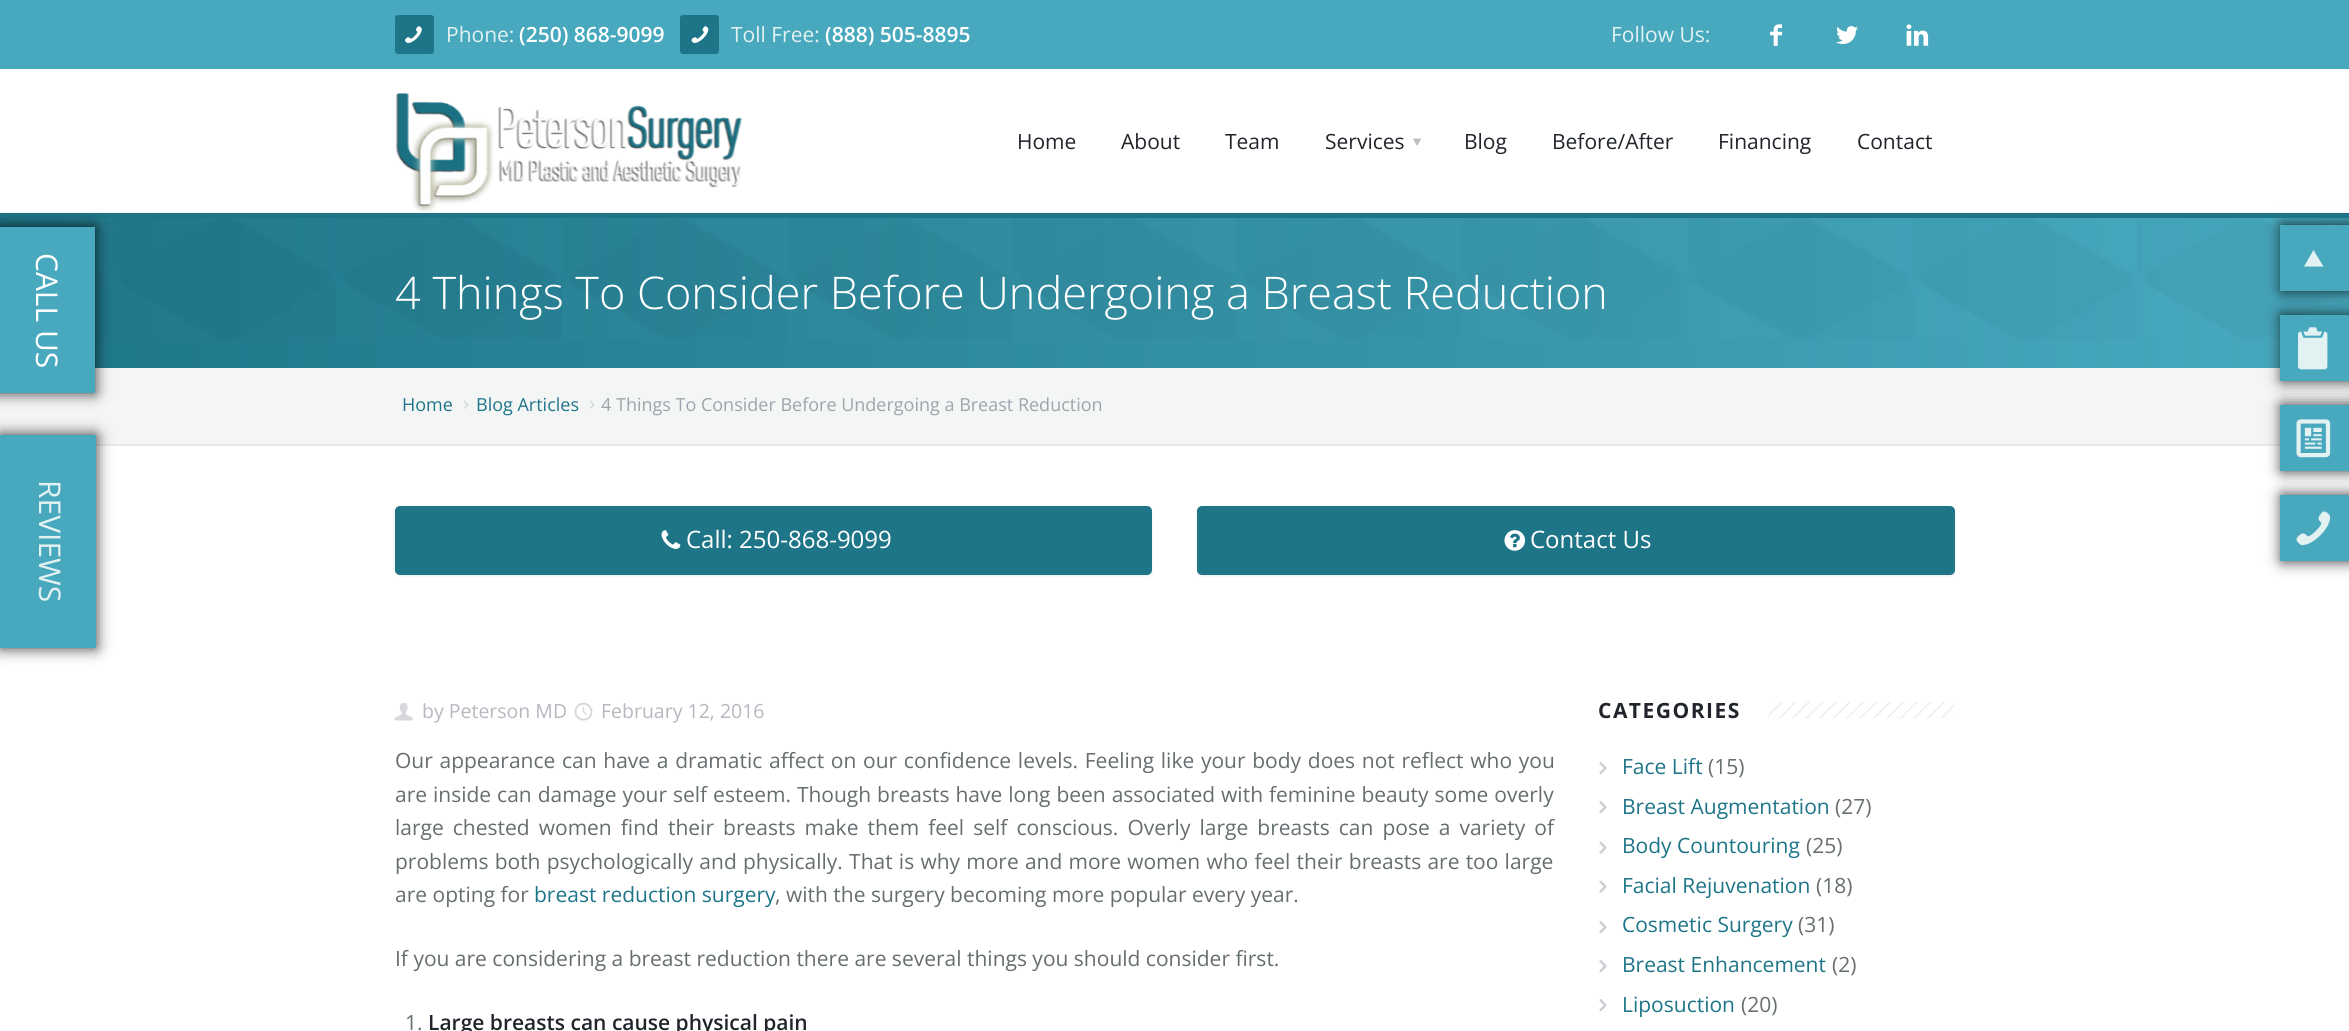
#include <cairo.h>
#include <math.h>
#include <stddef.h>

static cairo_t *ctx;

static void use_color(int r, int g, int b) {
    cairo_set_source_rgb(ctx, r / 255.0, g / 255.0, b / 255.0);
}

static void spaced_text(double x, double y, const char *s, double letter, double word) {
    cairo_move_to(ctx, x, y);
    while (*s) {
        char ch[5] = {0};
        int n = 0;
        do ch[n++] = *s++; while ((*s & 0xC0) == 0x80);
        cairo_show_text(ctx, ch);
        cairo_rel_move_to(ctx, letter + word * (*ch == ' '), 0);
    }
}

static void round_rect(double x, double y, double w, double h, double r) {
    cairo_new_sub_path(ctx);
    cairo_arc(ctx, x + w - r, y + h - r, r, 0, M_PI / 2);
    cairo_arc(ctx, x + r, y + h - r, r, M_PI / 2, M_PI);
    cairo_arc(ctx, x + r, y + r, r, M_PI, 1.5 * M_PI);
    cairo_arc(ctx, x + w - r, y + r, r, 1.5 * M_PI, 2 * M_PI);
    cairo_close_path(ctx);
}

static void shadow(double x, double y, double w, double h, double r, double blur, double alpha) {
    cairo_push_group_with_content(ctx, CAIRO_CONTENT_ALPHA);
    cairo_set_operator(ctx, CAIRO_OPERATOR_SOURCE);
    for (int i = 15; i >= -15 && fmin(w, h) + blur * i / 3 > 0; i -= 2) {
        double e = blur * i / 6;
        cairo_set_source_rgba(ctx, 0, 0, 0, alpha * erfc((i - 1) / 8.5) / 2);
        round_rect(x - e, y - e, w + 2 * e, h + 2 * e, fmax(0, fmin(r + e + blur * .6, fmin(w, h) / 2 + e)));
        cairo_fill(ctx);
    }
    cairo_pattern_t *soft = cairo_pop_group(ctx);
    cairo_mask(ctx, soft);
    cairo_pattern_destroy(soft);
}

static void picture(const char *path, double x, double y, double w, double h) {
    cairo_surface_t *image = cairo_image_surface_create_from_png(path);
    cairo_save(ctx);
    cairo_set_source_surface(ctx, image, x, y);
    cairo_rectangle(ctx, x, y, w, h);
    cairo_fill(ctx);
    cairo_restore(ctx);
    cairo_surface_destroy(image);
}

int main(void) {
    cairo_surface_t *surface = cairo_image_surface_create(CAIRO_FORMAT_RGB24, 2349, 1031);
    ctx = cairo_create(surface);
    cairo_font_options_t *options = cairo_font_options_create();
    cairo_font_options_set_hint_metrics(options, CAIRO_HINT_METRICS_OFF);
    cairo_font_options_set_hint_style(options, CAIRO_HINT_STYLE_NONE);
    cairo_set_font_options(ctx, options);
    cairo_set_miter_limit(ctx, 4);
    cairo_pattern_t *gradient;
    use_color(255, 255, 255);
    cairo_paint(ctx);
    use_color(72, 169, 190);
    cairo_rectangle(ctx, 0, 0, 2349, 69);
    cairo_fill(ctx);
    use_color(30, 117, 136);
    round_rect(395, 15, 39, 39, 3);
    cairo_fill(ctx);
    picture("img1.png", 405, 26, 17, 17);
    cairo_select_font_face(ctx, "Open Sans", CAIRO_FONT_SLANT_NORMAL, CAIRO_FONT_WEIGHT_NORMAL);
    cairo_set_font_size(ctx, 21);
    use_color(226, 241, 241);
    cairo_move_to(ctx, 446, 42);
    cairo_show_text(ctx, "Phone:");
    cairo_select_font_face(ctx, "Open Sans SemiBold", CAIRO_FONT_SLANT_NORMAL, CAIRO_FONT_WEIGHT_NORMAL);
    use_color(255, 255, 255);
    cairo_move_to(ctx, 519, 42);
    cairo_show_text(ctx, "(250) 868-9099");
    use_color(30, 117, 136);
    round_rect(680, 15, 39, 39, 3);
    cairo_fill(ctx);
    picture("img2.png", 691, 26, 18, 17);
    cairo_select_font_face(ctx, "Open Sans", CAIRO_FONT_SLANT_NORMAL, CAIRO_FONT_WEIGHT_NORMAL);
    use_color(226, 241, 241);
    cairo_move_to(ctx, 731, 42);
    cairo_show_text(ctx, "Toll Free:");
    cairo_select_font_face(ctx, "Open Sans SemiBold", CAIRO_FONT_SLANT_NORMAL, CAIRO_FONT_WEIGHT_NORMAL);
    use_color(255, 255, 255);
    cairo_move_to(ctx, 825, 42);
    cairo_show_text(ctx, "(888) 505-8895");
    cairo_select_font_face(ctx, "Open Sans", CAIRO_FONT_SLANT_NORMAL, CAIRO_FONT_WEIGHT_NORMAL);
    use_color(226, 241, 241);
    cairo_move_to(ctx, 1611, 42);
    cairo_show_text(ctx, "Follow Us:");
    picture("img3.png", 1770, 24, 12, 22);
    picture("img4.png", 1836, 26, 22, 18);
    picture("img5.png", 1906, 24, 23, 22);
    gradient = cairo_pattern_create_linear(0, 293, 2349, 292);
    cairo_pattern_add_color_stop_rgba(gradient, 0, 0.118, 0.459, 0.533, 1);
    cairo_pattern_add_color_stop_rgba(gradient, 1, 0.282, 0.663, 0.745, 1);
    cairo_set_source(ctx, gradient);
    cairo_pattern_destroy(gradient);
    cairo_rectangle(ctx, 0, 218, 2349, 150);
    cairo_fill(ctx);
    picture("img7.png", 11, 218, 2331, 121);
    use_color(0, 0, 0);
    shadow(2282, 225, 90, 66, 0, 7.5, 0.8);
    use_color(255, 255, 255);
    cairo_rectangle(ctx, 2277, 208, 72, 5);
    cairo_fill(ctx);
    use_color(30, 117, 136);
    cairo_rectangle(ctx, 0, 213, 2349, 5);
    cairo_fill(ctx);
    picture("img6.png", 395, 93, 348, 119);
    use_color(33, 37, 43);
    cairo_move_to(ctx, 1017, 149);
    cairo_show_text(ctx, "Home");
    cairo_move_to(ctx, 1121, 149);
    cairo_show_text(ctx, "About");
    cairo_move_to(ctx, 1225, 149);
    cairo_show_text(ctx, "Team");
    cairo_move_to(ctx, 1325, 149);
    cairo_show_text(ctx, "Services");
    use_color(188, 190, 191);
    cairo_new_path(ctx);
    cairo_move_to(ctx, 1421.5, 138.5);
    cairo_line_to(ctx, 1417, 146);
    cairo_line_to(ctx, 1413, 138.5);
    cairo_close_path(ctx);
    cairo_fill(ctx);
    use_color(33, 37, 43);
    cairo_move_to(ctx, 1464, 149);
    cairo_show_text(ctx, "Blog");
    cairo_move_to(ctx, 1552, 149);
    cairo_show_text(ctx, "Before/After");
    cairo_move_to(ctx, 1718, 149);
    cairo_show_text(ctx, "Financing");
    cairo_move_to(ctx, 1857, 149);
    cairo_show_text(ctx, "Contact");
    use_color(244, 246, 246);
    cairo_rectangle(ctx, 0, 368, 2349, 76);
    cairo_fill(ctx);
    use_color(0, 0, 0);
    shadow(-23, 227, 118, 166, 0, 7.5, 0.8);
    use_color(72, 169, 190);
    cairo_rectangle(ctx, 0, 227, 95, 166);
    cairo_fill(ctx);
    cairo_set_font_size(ctx, 30);
    use_color(255, 255, 255);
    cairo_save(ctx);
    cairo_translate(ctx, 36, 253);
    cairo_rotate(ctx, 90 * M_PI / 180);
    cairo_move_to(ctx, 0, 0);
    cairo_show_text(ctx, "CALL US");
    cairo_restore(ctx);
    cairo_select_font_face(ctx, "Open Sans Light", CAIRO_FONT_SLANT_NORMAL, CAIRO_FONT_WEIGHT_NORMAL);
    cairo_set_font_size(ctx, 45);
    cairo_move_to(ctx, 395, 309);
    cairo_show_text(ctx, "4 Things To Consider Before Undergoing a Breast Reduction");
    use_color(230, 234, 234);
    cairo_rectangle(ctx, 96, 444, 2184, 2);
    cairo_fill(ctx);
    cairo_select_font_face(ctx, "Open Sans", CAIRO_FONT_SLANT_NORMAL, CAIRO_FONT_WEIGHT_NORMAL);
    cairo_set_font_size(ctx, 18);
    use_color(30, 117, 136);
    cairo_move_to(ctx, 402, 411);
    cairo_show_text(ctx, "Home");
    picture("img8.png", 464, 400, 5, 9);
    cairo_move_to(ctx, 476, 411);
    cairo_show_text(ctx, "Blog Articles");
    picture("img8.png", 590, 400, 5, 9);
    use_color(156, 165, 171);
    cairo_move_to(ctx, 601, 411);
    cairo_show_text(ctx, "4 Things To Consider Before Undergoing a Breast Reduction");
    use_color(0, 0, 0);
    shadow(395, 507, 757, 69, 5, 1, 0.08);
    use_color(30, 117, 136);
    round_rect(396, 507, 755, 67, 4);
    cairo_fill_preserve(ctx);
    cairo_stroke(ctx);
    picture("img9.png", 661, 530, 20, 19);
    cairo_set_font_size(ctx, 24);
    use_color(255, 255, 255);
    cairo_move_to(ctx, 686, 548);
    cairo_show_text(ctx, "Call: 250-868-9099");
    use_color(0, 0, 0);
    shadow(1197, 507, 758, 69, 5, 1, 0.08);
    use_color(30, 117, 136);
    round_rect(1198, 507, 756, 67, 4);
    cairo_fill_preserve(ctx);
    cairo_stroke(ctx);
    picture("img10.png", 1504, 530, 22, 21);
    use_color(255, 255, 255);
    cairo_move_to(ctx, 1530, 548);
    cairo_show_text(ctx, "Contact Us");
    picture("img11.png", 394, 703, 19, 18);
    cairo_set_font_size(ctx, 19.5);
    use_color(181, 184, 191);
    cairo_move_to(ctx, 422, 718);
    cairo_show_text(ctx, "by Peterson MD");
    picture("img12.png", 574, 702, 19, 19);
    cairo_move_to(ctx, 601, 718);
    cairo_show_text(ctx, "February 12, 2016");
    cairo_set_font_size(ctx, 21);
    use_color(102, 110, 112);
    spaced_text(395, 768, "Our appearance can have a dramatic affect on our confidence levels. Feeling like your body does not reflect who you", 0, 1.25);
    spaced_text(395, 802, "are inside can damage your self esteem. Though breasts have long been associated with feminine beauty some overly", 0, 0.5);
    spaced_text(395, 835, "large chested women find their breasts make them feel self conscious. Overly large breasts can pose a variety of", 0, 3.6);
    spaced_text(395, 869, "problems both psychologically and physically. That is why more and more women who feel their breasts are too large", 0, 0.75);
    cairo_move_to(ctx, 395, 902);
    cairo_show_text(ctx, "are opting for");
    use_color(30, 117, 136);
    cairo_move_to(ctx, 534, 902);
    cairo_show_text(ctx, "breast reduction surgery");
    use_color(102, 110, 112);
    cairo_move_to(ctx, 775, 902);
    cairo_show_text(ctx, ", with the surgery becoming more popular every year.");
    cairo_move_to(ctx, 395, 966);
    cairo_show_text(ctx, "If you are considering a breast reduction there are several things you should consider first.");
    cairo_move_to(ctx, 405, 1030);
    cairo_show_text(ctx, "1.");
    cairo_select_font_face(ctx, "Open Sans SemiBold", CAIRO_FONT_SLANT_NORMAL, CAIRO_FONT_WEIGHT_NORMAL);
    use_color(33, 37, 43);
    cairo_move_to(ctx, 428, 1030);
    cairo_show_text(ctx, "Large breasts can cause physical pain");
    cairo_select_font_face(ctx, "Open Sans", CAIRO_FONT_SLANT_NORMAL, CAIRO_FONT_WEIGHT_BOLD);
    spaced_text(1598, 718, "CATEGORIES", 1.5, 0);
    picture("img13.png", 1768, 702, 187, 17);
    picture("img14.png", 1599, 762, 8, 13);
    cairo_select_font_face(ctx, "Open Sans", CAIRO_FONT_SLANT_NORMAL, CAIRO_FONT_WEIGHT_NORMAL);
    use_color(30, 117, 136);
    cairo_move_to(ctx, 1622, 774);
    cairo_show_text(ctx, "Face Lift");
    use_color(102, 110, 112);
    cairo_move_to(ctx, 1708, 774);
    cairo_show_text(ctx, "(15)");
    picture("img14.png", 1599, 801, 8, 13);
    use_color(30, 117, 136);
    cairo_move_to(ctx, 1622, 814);
    cairo_show_text(ctx, "Breast Augmentation");
    use_color(102, 110, 112);
    cairo_move_to(ctx, 1835, 814);
    cairo_show_text(ctx, "(27)");
    picture("img15.png", 1599, 841, 8, 13);
    use_color(30, 117, 136);
    cairo_move_to(ctx, 1622, 853);
    cairo_show_text(ctx, "Body Countouring");
    use_color(102, 110, 112);
    cairo_move_to(ctx, 1806, 853);
    cairo_show_text(ctx, "(25)");
    picture("img15.png", 1599, 880, 8, 13);
    use_color(30, 117, 136);
    cairo_move_to(ctx, 1622, 893);
    cairo_show_text(ctx, "Facial Rejuvenation");
    use_color(102, 110, 112);
    cairo_move_to(ctx, 1816, 893);
    cairo_show_text(ctx, "(18)");
    picture("img14.png", 1599, 921, 8, 13);
    use_color(30, 117, 136);
    cairo_move_to(ctx, 1622, 932);
    cairo_show_text(ctx, "Cosmetic Surgery");
    use_color(102, 110, 112);
    cairo_move_to(ctx, 1798, 932);
    cairo_show_text(ctx, "(31)");
    picture("img14.png", 1599, 960, 8, 13);
    use_color(30, 117, 136);
    cairo_move_to(ctx, 1622, 972);
    cairo_show_text(ctx, "Breast Enhancement");
    use_color(102, 110, 112);
    cairo_move_to(ctx, 1832, 972);
    cairo_show_text(ctx, "(2)");
    picture("img14.png", 1599, 999, 8, 13);
    use_color(30, 117, 136);
    cairo_move_to(ctx, 1622, 1012);
    cairo_show_text(ctx, "Liposuction");
    use_color(102, 110, 112);
    cairo_move_to(ctx, 1741, 1012);
    cairo_show_text(ctx, "(20)");
    use_color(72, 169, 190);
    cairo_rectangle(ctx, 2280, 225, 69, 66);
    cairo_fill(ctx);
    use_color(226, 241, 241);
    cairo_new_path(ctx);
    cairo_move_to(ctx, 2304, 266.5);
    cairo_line_to(ctx, 2313.5, 250);
    cairo_line_to(ctx, 2323.5, 266.5);
    cairo_close_path(ctx);
    cairo_fill(ctx);
    use_color(0, 0, 0);
    shadow(2282, 315, 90, 66, 0, 7.5, 0.8);
    use_color(72, 169, 190);
    cairo_rectangle(ctx, 2280, 315, 69, 66);
    cairo_fill(ctx);
    picture("img16.png", 2298, 327, 30, 43);
    use_color(0, 0, 0);
    shadow(2282, 405, 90, 66, 0, 7.5, 0.8);
    use_color(72, 169, 190);
    cairo_rectangle(ctx, 2280, 405, 69, 66);
    cairo_fill(ctx);
    picture("img17.png", 2296, 419, 35, 39);
    use_color(0, 0, 0);
    shadow(2282, 495, 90, 66, 0, 7.5, 0.8);
    use_color(72, 169, 190);
    cairo_rectangle(ctx, 2280, 495, 69, 66);
    cairo_fill(ctx);
    picture("img18.png", 2296, 511, 35, 35);
    use_color(0, 0, 0);
    shadow(0, 435, 96, 213, 0, 7.5, 0.8);
    use_color(72, 169, 190);
    cairo_rectangle(ctx, 0, 435, 96, 213);
    cairo_fill(ctx);
    cairo_set_font_size(ctx, 30);
    use_color(226, 241, 241);
    cairo_save(ctx);
    cairo_translate(ctx, 39, 480);
    cairo_rotate(ctx, 90 * M_PI / 180);
    cairo_move_to(ctx, 0, 0);
    cairo_show_text(ctx, "REVIEWS");
    cairo_restore(ctx);
    cairo_surface_write_to_png(surface, "result.png");
    cairo_font_options_destroy(options);
    cairo_destroy(ctx);
    cairo_surface_destroy(surface);
    return 0;
}
